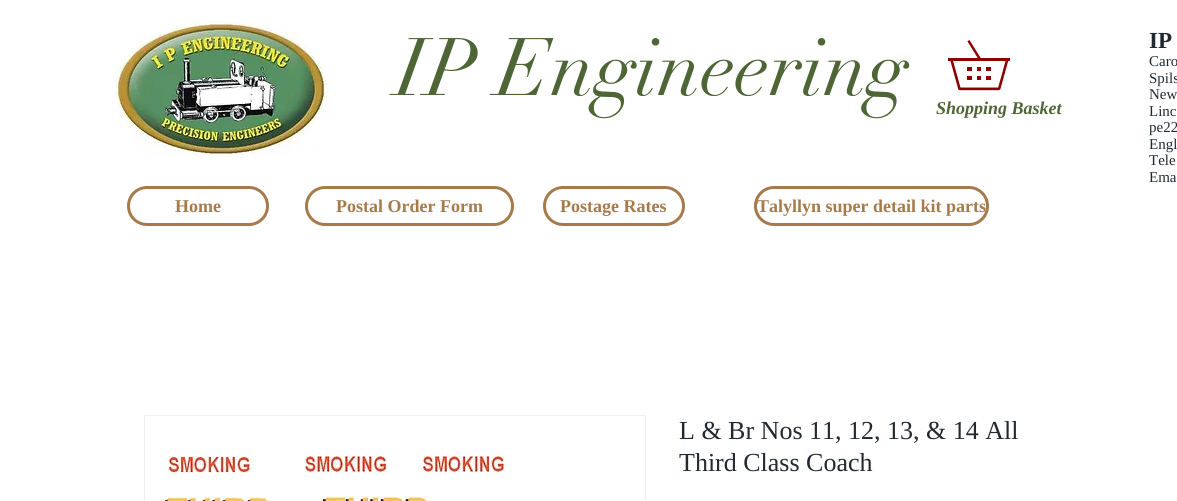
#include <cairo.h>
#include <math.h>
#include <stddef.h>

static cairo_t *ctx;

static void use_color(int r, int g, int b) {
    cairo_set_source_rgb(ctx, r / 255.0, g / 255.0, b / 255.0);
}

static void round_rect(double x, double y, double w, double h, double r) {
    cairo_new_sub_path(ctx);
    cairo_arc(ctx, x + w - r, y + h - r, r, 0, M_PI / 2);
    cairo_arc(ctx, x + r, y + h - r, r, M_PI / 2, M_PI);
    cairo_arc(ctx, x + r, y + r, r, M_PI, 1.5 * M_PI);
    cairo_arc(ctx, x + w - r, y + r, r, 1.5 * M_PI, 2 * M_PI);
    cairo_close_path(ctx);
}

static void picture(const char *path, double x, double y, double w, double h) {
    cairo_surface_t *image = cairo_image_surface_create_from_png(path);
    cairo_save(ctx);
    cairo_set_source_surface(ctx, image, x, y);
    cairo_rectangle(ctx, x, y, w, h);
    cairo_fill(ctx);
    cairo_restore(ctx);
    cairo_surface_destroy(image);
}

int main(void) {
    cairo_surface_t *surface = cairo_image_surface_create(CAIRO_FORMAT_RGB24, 1177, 501);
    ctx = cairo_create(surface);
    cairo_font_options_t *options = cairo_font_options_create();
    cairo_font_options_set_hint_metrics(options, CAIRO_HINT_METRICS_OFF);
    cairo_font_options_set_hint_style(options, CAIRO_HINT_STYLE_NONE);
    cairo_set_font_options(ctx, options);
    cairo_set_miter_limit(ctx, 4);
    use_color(255, 255, 255);
    cairo_paint(ctx);
    picture("img1.png", 115, 21, 216, 137);
    cairo_select_font_face(ctx, "didot", CAIRO_FONT_SLANT_NORMAL, CAIRO_FONT_WEIGHT_NORMAL);
    cairo_set_font_size(ctx, 80);
    use_color(78, 102, 54);
    cairo_move_to(ctx, 396, 95);
    cairo_show_text(ctx, "IP Engineering");
    cairo_select_font_face(ctx, "Liberation Serif", CAIRO_FONT_SLANT_NORMAL, CAIRO_FONT_WEIGHT_BOLD);
    cairo_set_font_size(ctx, 23);
    use_color(34, 42, 49);
    cairo_move_to(ctx, 1149, 48);
    cairo_show_text(ctx, "IP");
    cairo_select_font_face(ctx, "Liberation Serif", CAIRO_FONT_SLANT_NORMAL, CAIRO_FONT_WEIGHT_NORMAL);
    cairo_set_font_size(ctx, 15);
    cairo_move_to(ctx, 1149, 66);
    cairo_show_text(ctx, "Caro");
    cairo_move_to(ctx, 1149, 83);
    cairo_show_text(ctx, "Spils");
    cairo_move_to(ctx, 1149, 99);
    cairo_show_text(ctx, "New");
    cairo_move_to(ctx, 1149, 116);
    cairo_show_text(ctx, "Linc");
    cairo_move_to(ctx, 1149, 132);
    cairo_show_text(ctx, "pe22");
    cairo_move_to(ctx, 1149, 149);
    cairo_show_text(ctx, "Engl");
    cairo_move_to(ctx, 1149, 165);
    cairo_show_text(ctx, "Tele");
    cairo_move_to(ctx, 1149, 182);
    cairo_show_text(ctx, "Ema");
    round_rect(128.5, 187.5, 139, 37, 18.5);
    use_color(166, 122, 75);
    cairo_set_line_width(ctx, 3);
    cairo_stroke(ctx);
    cairo_select_font_face(ctx, "Liberation Serif", CAIRO_FONT_SLANT_NORMAL, CAIRO_FONT_WEIGHT_BOLD);
    cairo_set_font_size(ctx, 18);
    cairo_move_to(ctx, 175, 212);
    cairo_show_text(ctx, "Home");
    round_rect(306.5, 187.5, 206, 37, 18.5);
    cairo_stroke(ctx);
    cairo_move_to(ctx, 336, 212);
    cairo_show_text(ctx, "Postal Order Form");
    round_rect(544.5, 187.5, 139, 37, 18.5);
    cairo_stroke(ctx);
    cairo_move_to(ctx, 560, 212);
    cairo_show_text(ctx, "Postage Rates");
    round_rect(755.5, 187.5, 232, 37, 18.5);
    cairo_stroke(ctx);
    cairo_move_to(ctx, 757, 212);
    cairo_show_text(ctx, "Talyllyn super detail kit parts");
    picture("img2.png", 948, 40, 62, 51);
    cairo_select_font_face(ctx, "Liberation Serif", CAIRO_FONT_SLANT_ITALIC, CAIRO_FONT_WEIGHT_BOLD);
    use_color(78, 102, 54);
    cairo_move_to(ctx, 936, 114);
    cairo_show_text(ctx, "Shopping Basket");
    cairo_rectangle(ctx, 144.5, 415.5, 501, 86);
    use_color(240, 240, 240);
    cairo_set_line_width(ctx, 1);
    cairo_stroke(ctx);
    picture("img3.png", 165, 455, 341, 46);
    cairo_select_font_face(ctx, "Liberation Serif", CAIRO_FONT_SLANT_NORMAL, CAIRO_FONT_WEIGHT_NORMAL);
    cairo_set_font_size(ctx, 26);
    use_color(34, 42, 49);
    cairo_move_to(ctx, 679, 439);
    cairo_show_text(ctx, "L & Br Nos 11, 12, 13, & 14 All");
    cairo_move_to(ctx, 679, 471);
    cairo_show_text(ctx, "Third Class Coach");
    cairo_surface_write_to_png(surface, "result.png");
    cairo_font_options_destroy(options);
    cairo_destroy(ctx);
    cairo_surface_destroy(surface);
    return 0;
}
